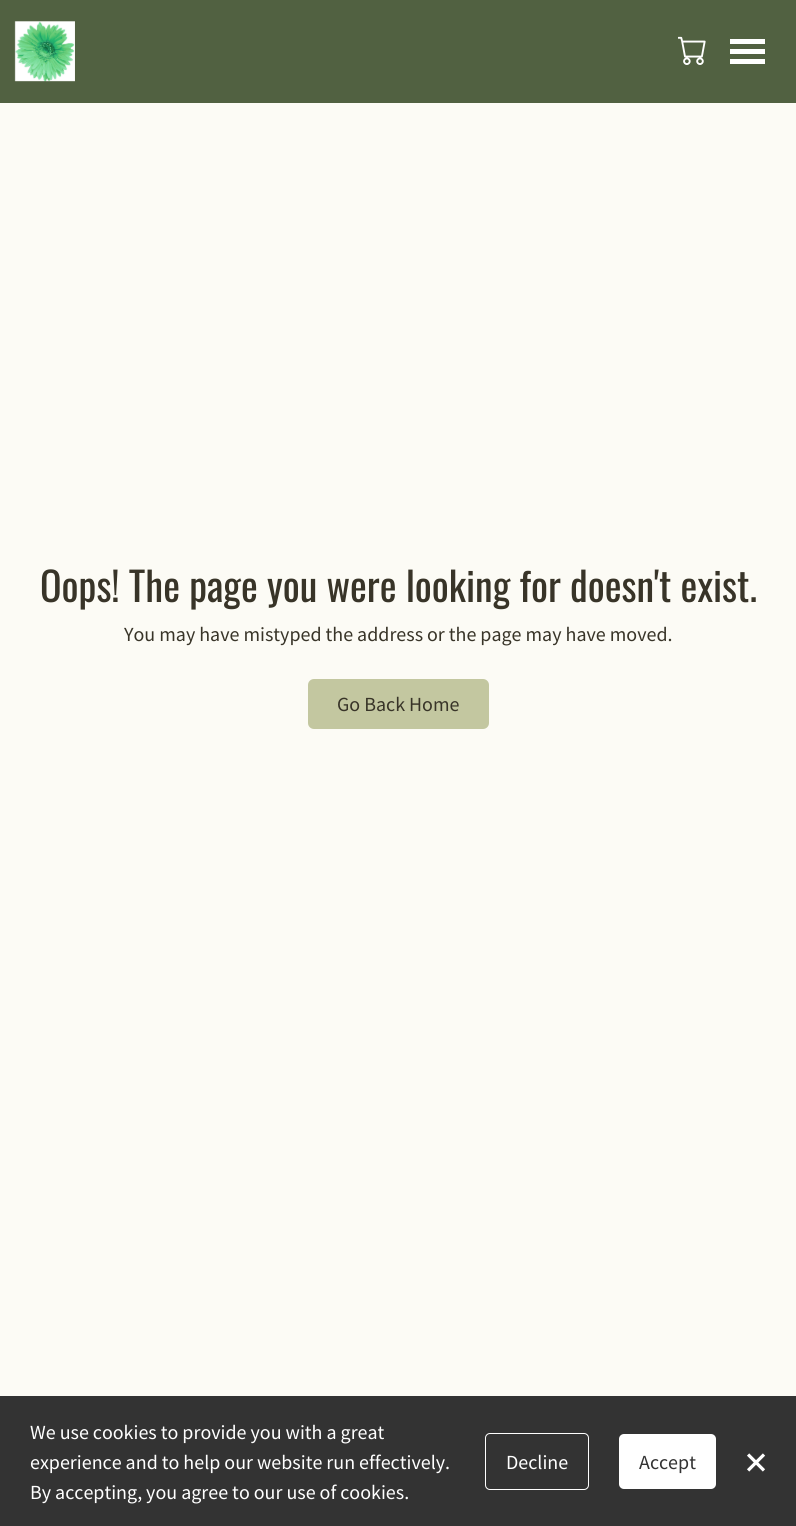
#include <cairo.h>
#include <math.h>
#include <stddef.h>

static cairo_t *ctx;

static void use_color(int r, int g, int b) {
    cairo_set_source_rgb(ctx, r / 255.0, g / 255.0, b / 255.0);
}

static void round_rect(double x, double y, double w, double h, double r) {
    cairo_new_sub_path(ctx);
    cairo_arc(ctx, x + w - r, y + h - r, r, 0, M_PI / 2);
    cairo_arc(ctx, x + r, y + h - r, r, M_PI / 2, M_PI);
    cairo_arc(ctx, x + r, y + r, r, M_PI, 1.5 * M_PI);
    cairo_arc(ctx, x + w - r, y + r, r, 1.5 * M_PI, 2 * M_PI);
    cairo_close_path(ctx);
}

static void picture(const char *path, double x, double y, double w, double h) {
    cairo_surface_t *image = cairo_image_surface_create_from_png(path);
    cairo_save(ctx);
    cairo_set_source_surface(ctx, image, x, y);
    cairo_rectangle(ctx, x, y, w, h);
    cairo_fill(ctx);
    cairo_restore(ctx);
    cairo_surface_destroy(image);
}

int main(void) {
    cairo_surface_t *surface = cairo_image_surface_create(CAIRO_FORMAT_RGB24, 796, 1526);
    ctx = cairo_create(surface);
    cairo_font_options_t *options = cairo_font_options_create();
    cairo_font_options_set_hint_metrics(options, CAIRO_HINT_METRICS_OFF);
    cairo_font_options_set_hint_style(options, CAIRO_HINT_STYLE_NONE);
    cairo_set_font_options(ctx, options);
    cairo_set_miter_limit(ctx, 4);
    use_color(252, 251, 245);
    cairo_paint(ctx);
    use_color(81, 97, 65);
    cairo_rectangle(ctx, 0, 0, 796, 103);
    cairo_fill(ctx);
    picture("img1.png", 14, 21, 61, 61);
    picture("img2.png", 678, 36, 28, 29);
    use_color(255, 255, 255);
    cairo_rectangle(ctx, 730, 39, 35, 5);
    cairo_fill(ctx);
    cairo_rectangle(ctx, 730, 49, 35, 5);
    cairo_fill(ctx);
    cairo_rectangle(ctx, 730, 59, 35, 5);
    cairo_fill(ctx);
    cairo_select_font_face(ctx, "Oswald", CAIRO_FONT_SLANT_NORMAL, CAIRO_FONT_WEIGHT_NORMAL);
    cairo_set_font_size(ctx, 40);
    use_color(56, 52, 40);
    cairo_move_to(ctx, 40, 602);
    cairo_show_text(ctx, "Oops! The page you were looking for doesn't exist.");
    cairo_select_font_face(ctx, "Source Sans Pro", CAIRO_FONT_SLANT_NORMAL, CAIRO_FONT_WEIGHT_NORMAL);
    cairo_set_font_size(ctx, 20);
    cairo_move_to(ctx, 124, 641);
    cairo_show_text(ctx, "You may have mistyped the address or the page may have moved.");
    use_color(195, 199, 160);
    round_rect(308, 679, 181, 50, 6);
    cairo_fill(ctx);
    use_color(56, 52, 40);
    cairo_move_to(ctx, 337, 711);
    cairo_show_text(ctx, "Go Back Home");
    use_color(51, 51, 51);
    cairo_rectangle(ctx, 0, 1396, 796, 130);
    cairo_fill(ctx);
    use_color(255, 255, 255);
    cairo_move_to(ctx, 30, 1439);
    cairo_show_text(ctx, "We use cookies to provide you with a great");
    cairo_move_to(ctx, 30, 1469);
    cairo_show_text(ctx, "experience and to help our website run effectively.");
    cairo_move_to(ctx, 30, 1499);
    cairo_show_text(ctx, "By accepting, you agree to our use of cookies.");
    round_rect(485.5, 1433.5, 103, 56, 4.5);
    cairo_set_line_width(ctx, 1);
    cairo_stroke(ctx);
    cairo_move_to(ctx, 506, 1469);
    cairo_show_text(ctx, "Decline");
    round_rect(619, 1434, 97, 55, 5);
    cairo_fill(ctx);
    use_color(51, 51, 51);
    cairo_move_to(ctx, 639, 1469);
    cairo_show_text(ctx, "Accept");
    cairo_select_font_face(ctx, "DejaVu Sans Mono", CAIRO_FONT_SLANT_NORMAL, CAIRO_FONT_WEIGHT_NORMAL);
    cairo_set_font_size(ctx, 40);
    use_color(255, 255, 255);
    cairo_move_to(ctx, 744, 1475);
    cairo_show_text(ctx, "×");
    cairo_surface_write_to_png(surface, "result.png");
    cairo_font_options_destroy(options);
    cairo_destroy(ctx);
    cairo_surface_destroy(surface);
    return 0;
}
